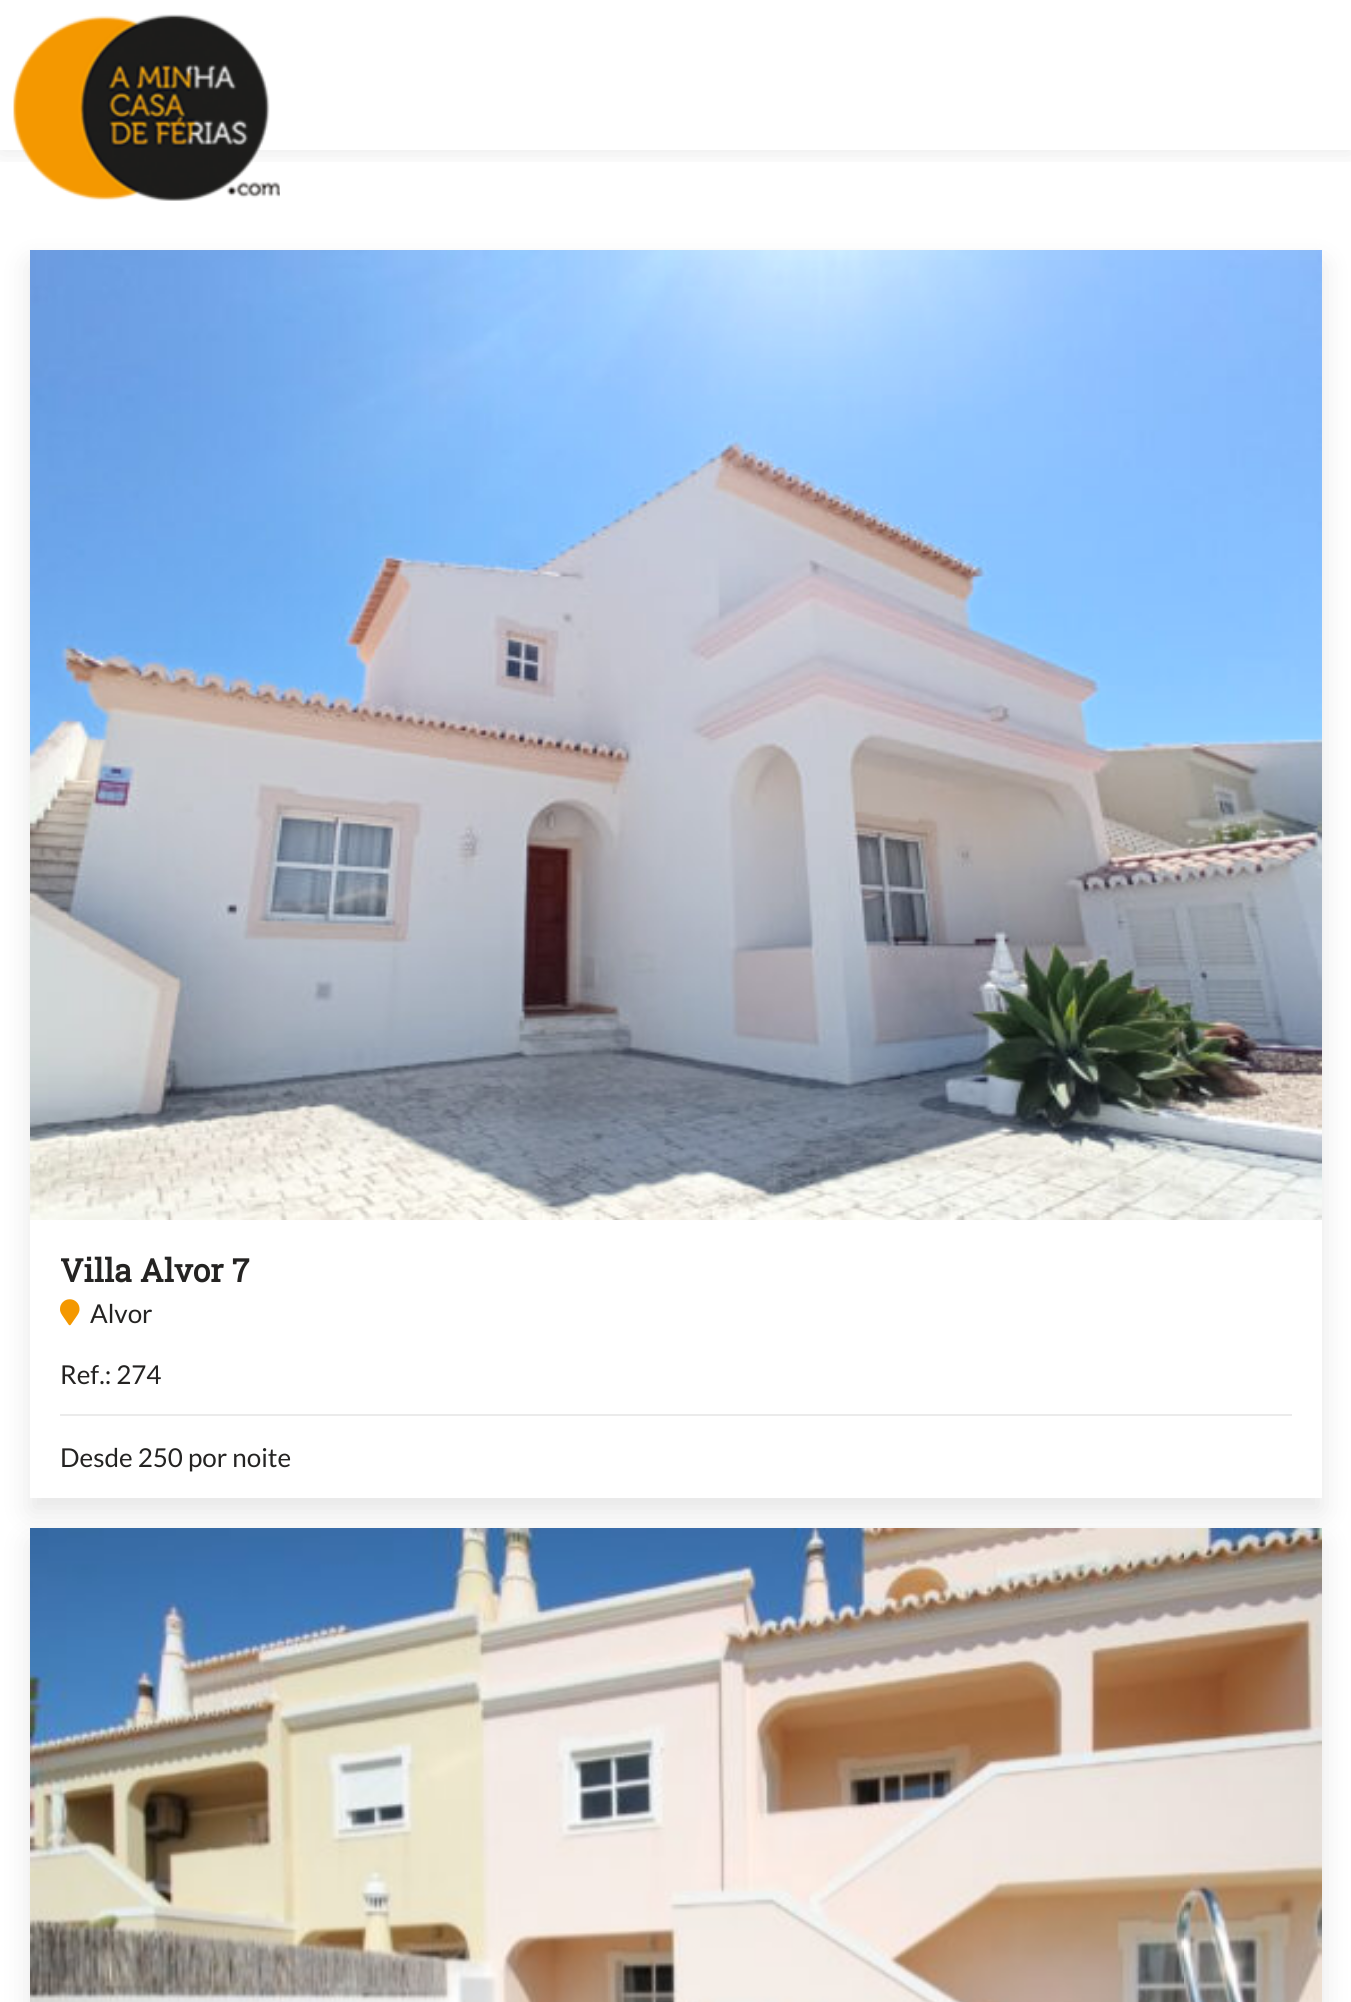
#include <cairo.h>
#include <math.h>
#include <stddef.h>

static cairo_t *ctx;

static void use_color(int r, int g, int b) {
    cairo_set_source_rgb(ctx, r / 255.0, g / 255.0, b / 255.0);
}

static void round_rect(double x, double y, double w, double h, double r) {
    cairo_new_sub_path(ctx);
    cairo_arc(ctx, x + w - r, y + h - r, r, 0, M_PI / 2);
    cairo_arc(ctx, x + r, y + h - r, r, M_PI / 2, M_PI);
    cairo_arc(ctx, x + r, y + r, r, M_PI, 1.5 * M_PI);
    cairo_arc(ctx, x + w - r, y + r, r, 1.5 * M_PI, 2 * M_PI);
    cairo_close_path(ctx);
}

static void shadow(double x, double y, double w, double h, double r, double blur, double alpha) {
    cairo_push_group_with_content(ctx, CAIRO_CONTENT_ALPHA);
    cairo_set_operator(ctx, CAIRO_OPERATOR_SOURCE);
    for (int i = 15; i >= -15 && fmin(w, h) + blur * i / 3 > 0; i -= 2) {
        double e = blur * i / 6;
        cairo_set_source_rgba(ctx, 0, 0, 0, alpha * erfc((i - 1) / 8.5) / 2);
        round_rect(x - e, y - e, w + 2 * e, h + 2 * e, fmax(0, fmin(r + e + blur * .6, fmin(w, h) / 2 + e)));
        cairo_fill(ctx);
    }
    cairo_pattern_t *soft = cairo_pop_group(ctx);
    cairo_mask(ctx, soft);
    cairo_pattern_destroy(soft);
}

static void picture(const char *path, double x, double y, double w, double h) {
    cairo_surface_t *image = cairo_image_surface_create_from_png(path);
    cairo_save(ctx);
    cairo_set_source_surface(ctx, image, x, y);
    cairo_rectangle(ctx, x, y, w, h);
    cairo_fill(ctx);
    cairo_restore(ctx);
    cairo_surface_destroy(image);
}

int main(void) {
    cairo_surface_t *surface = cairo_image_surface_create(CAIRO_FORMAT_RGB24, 1351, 2002);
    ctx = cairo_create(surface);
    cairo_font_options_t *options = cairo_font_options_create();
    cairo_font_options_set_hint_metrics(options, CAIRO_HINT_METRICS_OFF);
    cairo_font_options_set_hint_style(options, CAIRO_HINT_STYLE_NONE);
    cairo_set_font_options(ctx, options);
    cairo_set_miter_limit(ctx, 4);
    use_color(255, 255, 255);
    cairo_paint(ctx);
    cairo_save(ctx);
    cairo_rectangle(ctx, 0, 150, 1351, 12);
    cairo_clip(ctx);
    use_color(0, 0, 0);
    shadow(0, 0, 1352, 150, 0, 14, 0.1);
    cairo_restore(ctx);
    picture("img1.png", 13, 14, 267, 187);
    cairo_save(ctx);
    cairo_set_fill_rule(ctx, CAIRO_FILL_RULE_EVEN_ODD);
    cairo_new_path(ctx);
    cairo_move_to(ctx, 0, 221);
    cairo_line_to(ctx, 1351, 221);
    cairo_line_to(ctx, 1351, 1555);
    cairo_line_to(ctx, 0, 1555);
    cairo_close_path(ctx);
    cairo_move_to(ctx, 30, 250);
    cairo_line_to(ctx, 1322, 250);
    cairo_line_to(ctx, 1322, 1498);
    cairo_line_to(ctx, 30, 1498);
    cairo_close_path(ctx);
    cairo_clip(ctx);
    use_color(0, 0, 0);
    shadow(30, 264, 1292, 1248, 0, 14, 0.1);
    cairo_restore(ctx);
    picture("img2.png", 30, 250, 1292, 970);
    cairo_select_font_face(ctx, "Roboto Slab", CAIRO_FONT_SLANT_NORMAL, CAIRO_FONT_WEIGHT_BOLD);
    cairo_set_font_size(ctx, 32);
    use_color(36, 35, 34);
    cairo_move_to(ctx, 60, 1282);
    cairo_show_text(ctx, "Villa Alvor 7");
    picture("img3.png", 60, 1299, 20, 27);
    cairo_select_font_face(ctx, "Lato", CAIRO_FONT_SLANT_NORMAL, CAIRO_FONT_WEIGHT_NORMAL);
    cairo_set_font_size(ctx, 26);
    cairo_move_to(ctx, 90, 1323);
    cairo_show_text(ctx, "Alvor");
    cairo_move_to(ctx, 60, 1384);
    cairo_show_text(ctx, "Ref.: 274");
    use_color(235, 235, 235);
    cairo_rectangle(ctx, 60, 1414, 1232, 2);
    cairo_fill(ctx);
    use_color(36, 35, 34);
    cairo_move_to(ctx, 60, 1467);
    cairo_show_text(ctx, "Desde 250 por noite");
    use_color(0, 0, 0);
    shadow(30, 1542, 1292, 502, 0, 14, 0.1);
    picture("img4.png", 30, 1528, 1292, 474);
    cairo_surface_write_to_png(surface, "result.png");
    cairo_font_options_destroy(options);
    cairo_destroy(ctx);
    cairo_surface_destroy(surface);
    return 0;
}
